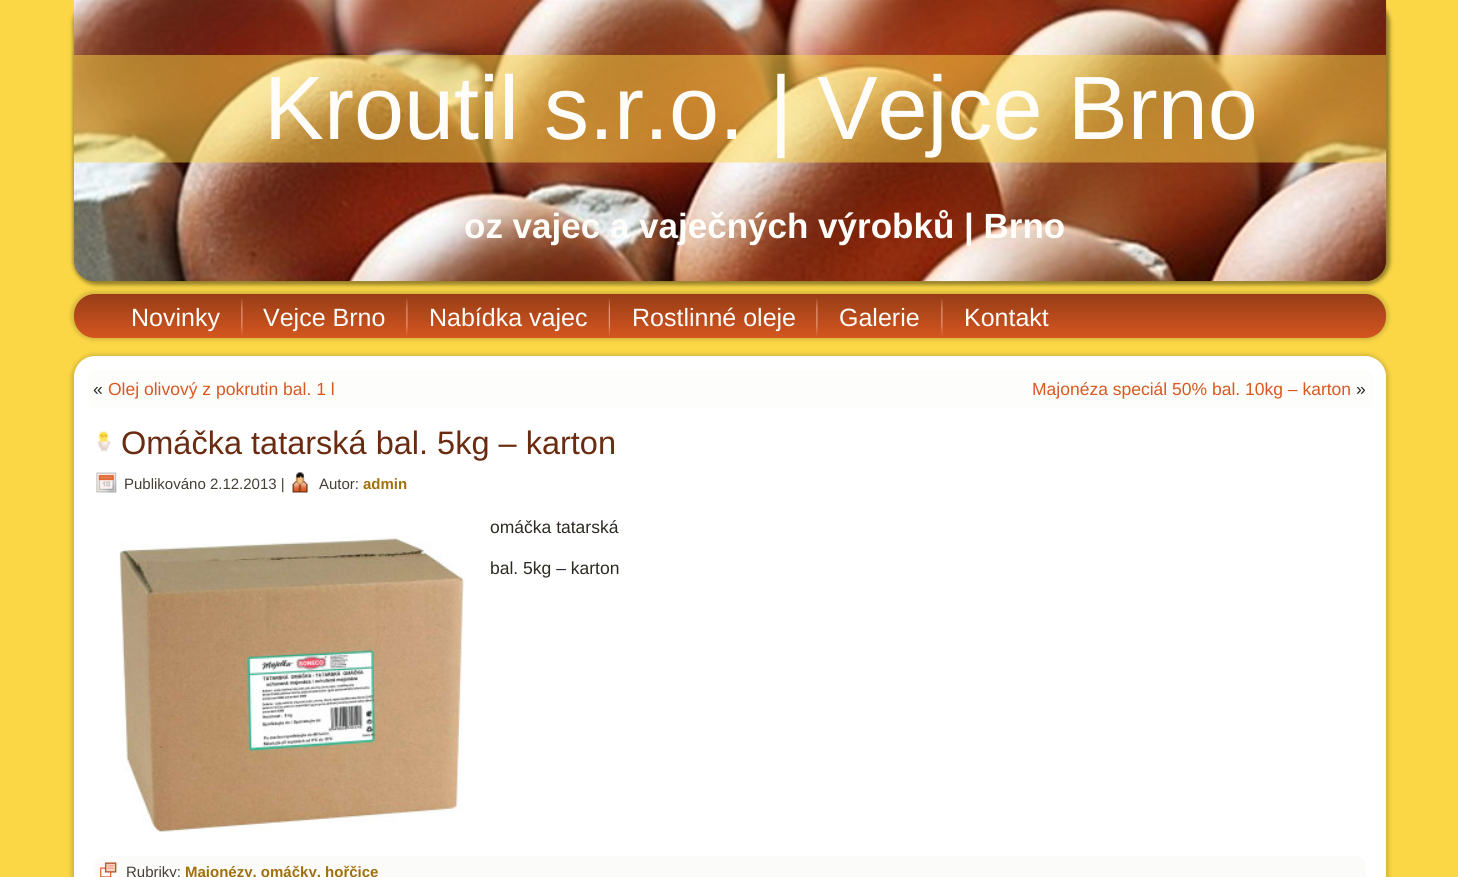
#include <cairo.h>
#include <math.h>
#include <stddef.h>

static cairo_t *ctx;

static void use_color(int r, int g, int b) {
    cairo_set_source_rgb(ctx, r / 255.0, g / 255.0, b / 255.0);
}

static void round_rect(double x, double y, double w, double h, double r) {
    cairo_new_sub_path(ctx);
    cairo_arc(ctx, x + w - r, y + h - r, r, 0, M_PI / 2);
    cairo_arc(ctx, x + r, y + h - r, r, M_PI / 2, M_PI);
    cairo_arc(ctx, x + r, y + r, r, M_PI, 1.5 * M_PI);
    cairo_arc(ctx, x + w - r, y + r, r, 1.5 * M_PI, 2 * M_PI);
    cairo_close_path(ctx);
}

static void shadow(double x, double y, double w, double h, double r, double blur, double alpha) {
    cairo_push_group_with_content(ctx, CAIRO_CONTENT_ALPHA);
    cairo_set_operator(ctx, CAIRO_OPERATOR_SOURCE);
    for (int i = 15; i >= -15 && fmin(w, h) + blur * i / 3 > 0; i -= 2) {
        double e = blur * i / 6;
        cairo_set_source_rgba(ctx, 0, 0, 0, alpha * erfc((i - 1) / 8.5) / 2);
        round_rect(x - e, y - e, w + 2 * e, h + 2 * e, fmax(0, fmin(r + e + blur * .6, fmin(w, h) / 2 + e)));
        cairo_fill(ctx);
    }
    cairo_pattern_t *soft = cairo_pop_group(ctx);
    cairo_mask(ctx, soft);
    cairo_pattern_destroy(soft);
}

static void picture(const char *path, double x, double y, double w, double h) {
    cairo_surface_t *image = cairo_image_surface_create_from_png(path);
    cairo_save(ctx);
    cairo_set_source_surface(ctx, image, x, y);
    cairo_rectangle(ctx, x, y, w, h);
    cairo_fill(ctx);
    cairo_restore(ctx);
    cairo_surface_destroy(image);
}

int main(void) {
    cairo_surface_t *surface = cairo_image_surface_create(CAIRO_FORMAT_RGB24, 1458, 877);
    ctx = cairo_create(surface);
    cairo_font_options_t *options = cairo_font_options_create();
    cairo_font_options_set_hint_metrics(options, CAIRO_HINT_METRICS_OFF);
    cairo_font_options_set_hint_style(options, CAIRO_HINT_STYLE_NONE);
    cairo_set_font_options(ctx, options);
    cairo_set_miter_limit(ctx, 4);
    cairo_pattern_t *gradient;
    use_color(251, 215, 70);
    cairo_paint(ctx);
    use_color(0, 0, 0);
    shadow(73, -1, 1317, 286, 24, 2, 0.4);
    picture("img1.png", 73, 0, 1314, 282);
    cairo_select_font_face(ctx, "Liberation Sans", CAIRO_FONT_SLANT_NORMAL, CAIRO_FONT_WEIGHT_NORMAL);
    cairo_set_font_size(ctx, 90);
    use_color(255, 253, 250);
    cairo_move_to(ctx, 264, 139);
    cairo_show_text(ctx, "Kroutil s.r.o. | Vejce Brno");
    cairo_select_font_face(ctx, "Liberation Sans", CAIRO_FONT_SLANT_NORMAL, CAIRO_FONT_WEIGHT_BOLD);
    cairo_set_font_size(ctx, 35);
    cairo_move_to(ctx, 464, 238);
    cairo_show_text(ctx, "oz vajec a vaječných výrobků | Brno");
    use_color(0, 0, 0);
    shadow(71, 291, 1318, 49, 24, 2, 0.15);
    gradient = cairo_pattern_create_linear(730, 294, 730, 338);
    cairo_pattern_add_color_stop_rgba(gradient, 0, 0.592, 0.239, 0.09, 1);
    cairo_pattern_add_color_stop_rgba(gradient, 1, 0.835, 0.337, 0.125, 1);
    cairo_set_source(ctx, gradient);
    cairo_pattern_destroy(gradient);
    round_rect(74, 294, 1312, 44, 21);
    cairo_fill(ctx);
    cairo_select_font_face(ctx, "Liberation Sans", CAIRO_FONT_SLANT_NORMAL, CAIRO_FONT_WEIGHT_NORMAL);
    cairo_set_font_size(ctx, 25);
    use_color(255, 253, 250);
    cairo_move_to(ctx, 131, 326);
    cairo_show_text(ctx, "Novinky");
    picture("img2.png", 241, 298, 2, 38);
    cairo_move_to(ctx, 263, 326);
    cairo_show_text(ctx, "Vejce Brno");
    picture("img2.png", 406, 298, 2, 38);
    cairo_move_to(ctx, 429, 326);
    cairo_show_text(ctx, "Nabídka vajec");
    picture("img3.png", 608, 297, 2, 39);
    cairo_move_to(ctx, 632, 326);
    cairo_show_text(ctx, "Rostlinné oleje");
    picture("img2.png", 816, 298, 2, 38);
    cairo_move_to(ctx, 839, 326);
    cairo_show_text(ctx, "Galerie");
    picture("img2.png", 941, 298, 2, 38);
    cairo_move_to(ctx, 964, 326);
    cairo_show_text(ctx, "Kontakt");
    use_color(0, 0, 0);
    shadow(71, 354, 1318, 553, 24, 2, 0.15);
    use_color(255, 255, 255);
    round_rect(74, 356, 1312, 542, 21);
    cairo_fill(ctx);
    use_color(253, 253, 252);
    round_rect(88, 370, 1285, 39, 8);
    cairo_fill(ctx);
    cairo_set_font_size(ctx, 17.5);
    use_color(46, 42, 35);
    cairo_move_to(ctx, 93, 395);
    cairo_show_text(ctx, "«");
    use_color(217, 88, 32);
    cairo_move_to(ctx, 108, 395);
    cairo_show_text(ctx, "Olej olivový z pokrutin bal. 1 l");
    cairo_move_to(ctx, 1032, 395);
    cairo_show_text(ctx, "Majonéza speciál 50% bal. 10kg – karton");
    use_color(46, 42, 35);
    cairo_move_to(ctx, 1356, 395);
    cairo_show_text(ctx, "»");
    picture("img4.png", 97, 431, 14, 21);
    cairo_set_font_size(ctx, 32.5);
    use_color(106, 43, 16);
    cairo_move_to(ctx, 121, 454);
    cairo_show_text(ctx, "Omáčka tatarská bal. 5kg – karton");
    picture("img5.png", 96, 472, 21, 21);
    cairo_set_font_size(ctx, 15);
    use_color(69, 63, 53);
    cairo_move_to(ctx, 124, 489);
    cairo_show_text(ctx, "Publikováno 2.12.2013 |");
    picture("img6.png", 292, 472, 16, 21);
    cairo_move_to(ctx, 319, 489);
    cairo_show_text(ctx, "Autor:");
    cairo_select_font_face(ctx, "Liberation Sans", CAIRO_FONT_SLANT_NORMAL, CAIRO_FONT_WEIGHT_BOLD);
    use_color(161, 112, 12);
    cairo_move_to(ctx, 363, 489);
    cairo_show_text(ctx, "admin");
    cairo_select_font_face(ctx, "Liberation Sans", CAIRO_FONT_SLANT_NORMAL, CAIRO_FONT_WEIGHT_NORMAL);
    cairo_set_font_size(ctx, 17.5);
    use_color(46, 42, 35);
    cairo_move_to(ctx, 490, 533);
    cairo_show_text(ctx, "omáčka tatarská");
    picture("img7.png", 119, 535, 346, 298);
    cairo_move_to(ctx, 490, 574);
    cairo_show_text(ctx, "bal. 5kg – karton");
    use_color(251, 251, 250);
    round_rect(94, 856, 1272, 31, 10);
    cairo_fill(ctx);
    picture("img8.png", 99, 862, 18, 15);
    cairo_set_font_size(ctx, 15);
    use_color(69, 63, 53);
    cairo_move_to(ctx, 126, 877);
    cairo_show_text(ctx, "Rubriky:");
    cairo_select_font_face(ctx, "Liberation Sans", CAIRO_FONT_SLANT_NORMAL, CAIRO_FONT_WEIGHT_BOLD);
    use_color(161, 112, 12);
    cairo_move_to(ctx, 185, 877);
    cairo_show_text(ctx, "Majonézy, omáčky, hořčice");
    cairo_surface_write_to_png(surface, "result.png");
    cairo_font_options_destroy(options);
    cairo_destroy(ctx);
    cairo_surface_destroy(surface);
    return 0;
}
